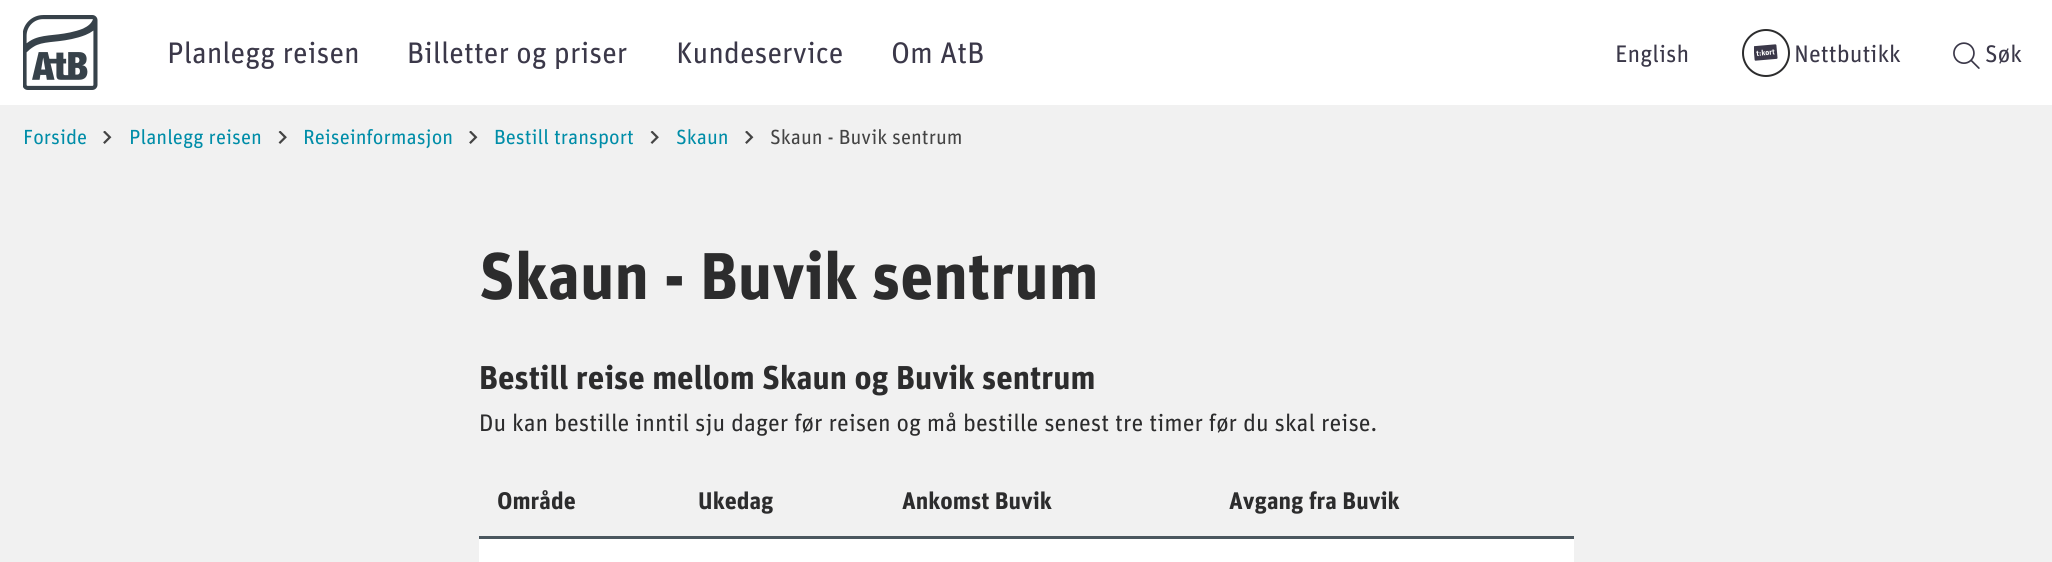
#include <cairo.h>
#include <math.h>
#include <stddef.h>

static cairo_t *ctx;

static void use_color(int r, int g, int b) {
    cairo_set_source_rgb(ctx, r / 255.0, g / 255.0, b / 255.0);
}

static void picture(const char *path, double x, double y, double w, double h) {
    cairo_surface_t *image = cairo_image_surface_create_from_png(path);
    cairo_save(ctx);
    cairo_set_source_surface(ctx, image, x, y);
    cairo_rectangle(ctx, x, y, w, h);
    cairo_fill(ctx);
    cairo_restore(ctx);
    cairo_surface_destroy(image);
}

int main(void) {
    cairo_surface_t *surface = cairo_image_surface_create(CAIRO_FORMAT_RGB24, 2052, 562);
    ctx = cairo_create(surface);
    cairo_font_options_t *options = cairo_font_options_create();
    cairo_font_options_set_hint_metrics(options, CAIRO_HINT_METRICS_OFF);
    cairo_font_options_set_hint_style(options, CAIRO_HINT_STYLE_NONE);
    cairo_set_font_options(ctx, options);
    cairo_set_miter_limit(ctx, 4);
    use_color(241, 241, 241);
    cairo_paint(ctx);
    use_color(255, 255, 255);
    cairo_rectangle(ctx, 0, 0, 2052, 105);
    cairo_fill(ctx);
    picture("img1.png", 23, 15, 75, 75);
    cairo_select_font_face(ctx, "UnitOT", CAIRO_FONT_SLANT_NORMAL, CAIRO_FONT_WEIGHT_NORMAL);
    cairo_set_font_size(ctx, 29.75);
    use_color(59, 56, 73);
    cairo_move_to(ctx, 167, 63);
    cairo_show_text(ctx, "Planlegg reisen");
    cairo_move_to(ctx, 407, 63);
    cairo_show_text(ctx, "Billetter og priser");
    cairo_move_to(ctx, 676, 63);
    cairo_show_text(ctx, "Kundeservice");
    cairo_move_to(ctx, 891, 63);
    cairo_show_text(ctx, "Om AtB");
    cairo_set_font_size(ctx, 24);
    cairo_move_to(ctx, 1615, 62);
    cairo_show_text(ctx, "English");
    cairo_new_path(ctx);
    cairo_arc(ctx, 1766, 53, 23, 0, 2 * M_PI);
    use_color(44, 44, 45);
    cairo_stroke(ctx);
    picture("img2.png", 1754, 44, 24, 17);
    use_color(59, 56, 73);
    cairo_move_to(ctx, 1794, 62);
    cairo_show_text(ctx, "Nettbutikk");
    picture("img3.png", 1953, 42, 27, 27);
    cairo_move_to(ctx, 1985, 62);
    cairo_show_text(ctx, "Søk");
    cairo_set_font_size(ctx, 20.5);
    use_color(0, 141, 168);
    cairo_move_to(ctx, 23, 144);
    cairo_show_text(ctx, "Forside");
    picture("img4.png", 103, 131, 9, 13);
    cairo_move_to(ctx, 129, 144);
    cairo_show_text(ctx, "Planlegg reisen");
    picture("img5.png", 278, 131, 9, 13);
    cairo_move_to(ctx, 303, 144);
    cairo_show_text(ctx, "Reiseinformasjon");
    picture("img4.png", 469, 131, 9, 13);
    cairo_move_to(ctx, 494, 144);
    cairo_show_text(ctx, "Bestill transport");
    picture("img5.png", 650, 131, 9, 13);
    cairo_move_to(ctx, 676, 144);
    cairo_show_text(ctx, "Skaun");
    picture("img4.png", 745, 131, 9, 13);
    use_color(68, 68, 68);
    cairo_move_to(ctx, 770, 144);
    cairo_show_text(ctx, "Skaun - Buvik sentrum");
    cairo_select_font_face(ctx, "UnitOT", CAIRO_FONT_SLANT_NORMAL, CAIRO_FONT_WEIGHT_BOLD);
    cairo_set_font_size(ctx, 66);
    use_color(44, 44, 45);
    cairo_move_to(ctx, 479, 299);
    cairo_show_text(ctx, "Skaun - Buvik sentrum");
    cairo_set_font_size(ctx, 33);
    cairo_move_to(ctx, 479, 389);
    cairo_show_text(ctx, "Bestill reise mellom Skaun og Buvik sentrum");
    cairo_select_font_face(ctx, "UnitOT", CAIRO_FONT_SLANT_NORMAL, CAIRO_FONT_WEIGHT_NORMAL);
    cairo_set_font_size(ctx, 24);
    cairo_move_to(ctx, 479, 431);
    cairo_show_text(ctx, "Du kan bestille inntil sju dager før reisen og må bestille senest tre timer før du skal reise.");
    cairo_select_font_face(ctx, "UnitOT", CAIRO_FONT_SLANT_NORMAL, CAIRO_FONT_WEIGHT_BOLD);
    cairo_move_to(ctx, 497, 509);
    cairo_show_text(ctx, "Område");
    cairo_move_to(ctx, 698, 509);
    cairo_show_text(ctx, "Ukedag");
    cairo_move_to(ctx, 902, 509);
    cairo_show_text(ctx, "Ankomst Buvik");
    use_color(75, 87, 95);
    cairo_rectangle(ctx, 479, 536, 1095, 3);
    cairo_fill(ctx);
    use_color(44, 44, 45);
    cairo_move_to(ctx, 1229, 509);
    cairo_show_text(ctx, "Avgang fra Buvik");
    use_color(255, 255, 255);
    cairo_rectangle(ctx, 479, 539, 1095, 23);
    cairo_fill(ctx);
    cairo_surface_write_to_png(surface, "result.png");
    cairo_font_options_destroy(options);
    cairo_destroy(ctx);
    cairo_surface_destroy(surface);
    return 0;
}
